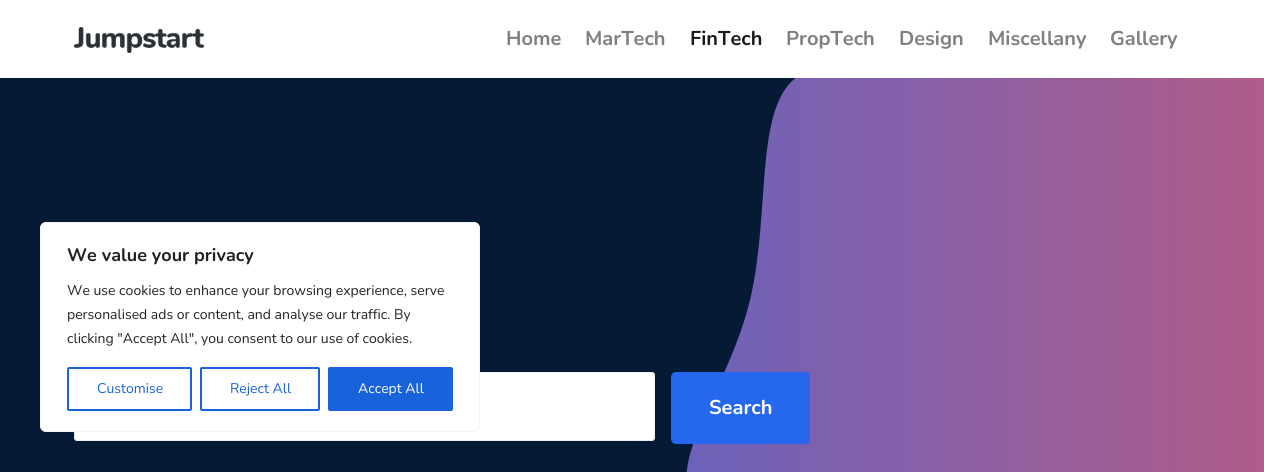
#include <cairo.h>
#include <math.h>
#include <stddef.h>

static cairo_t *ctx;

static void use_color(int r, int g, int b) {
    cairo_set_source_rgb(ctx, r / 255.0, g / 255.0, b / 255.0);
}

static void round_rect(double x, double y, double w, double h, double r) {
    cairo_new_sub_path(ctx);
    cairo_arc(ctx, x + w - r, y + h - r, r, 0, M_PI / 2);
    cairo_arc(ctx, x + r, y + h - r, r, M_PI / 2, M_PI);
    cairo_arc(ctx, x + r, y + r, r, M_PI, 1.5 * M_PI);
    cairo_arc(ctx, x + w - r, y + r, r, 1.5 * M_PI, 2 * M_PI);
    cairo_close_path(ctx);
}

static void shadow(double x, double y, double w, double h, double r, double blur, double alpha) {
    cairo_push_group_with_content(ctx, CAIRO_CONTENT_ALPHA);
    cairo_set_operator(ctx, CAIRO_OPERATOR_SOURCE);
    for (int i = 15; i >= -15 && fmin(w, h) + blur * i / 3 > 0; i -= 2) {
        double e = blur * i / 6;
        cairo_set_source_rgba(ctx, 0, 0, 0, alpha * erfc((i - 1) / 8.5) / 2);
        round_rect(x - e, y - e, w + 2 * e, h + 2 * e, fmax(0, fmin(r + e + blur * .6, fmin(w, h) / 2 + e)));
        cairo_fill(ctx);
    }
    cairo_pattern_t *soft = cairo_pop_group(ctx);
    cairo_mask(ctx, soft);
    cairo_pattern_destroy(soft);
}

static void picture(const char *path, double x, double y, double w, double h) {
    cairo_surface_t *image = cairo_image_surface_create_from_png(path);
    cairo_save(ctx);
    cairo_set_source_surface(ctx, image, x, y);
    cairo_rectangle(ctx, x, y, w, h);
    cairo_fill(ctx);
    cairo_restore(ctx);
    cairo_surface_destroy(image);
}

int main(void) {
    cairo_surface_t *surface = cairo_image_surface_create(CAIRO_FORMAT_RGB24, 1264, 472);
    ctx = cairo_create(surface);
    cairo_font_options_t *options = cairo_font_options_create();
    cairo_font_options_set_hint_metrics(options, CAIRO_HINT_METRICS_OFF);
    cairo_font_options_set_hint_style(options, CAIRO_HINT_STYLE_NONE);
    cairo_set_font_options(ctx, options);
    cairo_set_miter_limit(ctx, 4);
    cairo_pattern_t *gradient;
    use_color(255, 255, 255);
    cairo_paint(ctx);
    picture("img1.png", 74, 27, 130, 26);
    cairo_select_font_face(ctx, "Nunito", CAIRO_FONT_SLANT_NORMAL, CAIRO_FONT_WEIGHT_BOLD);
    cairo_set_font_size(ctx, 20);
    use_color(128, 128, 128);
    cairo_move_to(ctx, 506, 45);
    cairo_show_text(ctx, "Home");
    cairo_move_to(ctx, 585, 45);
    cairo_show_text(ctx, "MarTech");
    use_color(26, 26, 26);
    cairo_move_to(ctx, 690, 45);
    cairo_show_text(ctx, "FinTech");
    use_color(128, 128, 128);
    cairo_move_to(ctx, 786, 45);
    cairo_show_text(ctx, "PropTech");
    cairo_move_to(ctx, 899, 45);
    cairo_show_text(ctx, "Design");
    cairo_move_to(ctx, 988, 45);
    cairo_show_text(ctx, "Miscellany");
    cairo_move_to(ctx, 1110, 45);
    cairo_show_text(ctx, "Gallery");
    use_color(5, 27, 53);
    cairo_rectangle(ctx, 0, 78, 796, 394);
    cairo_fill(ctx);
    use_color(255, 255, 255);
    round_rect(74.5, 372.5, 580, 68, 2.5);
    cairo_fill_preserve(ctx);
    use_color(234, 237, 242);
    cairo_set_line_width(ctx, 1);
    cairo_stroke(ctx);
    cairo_save(ctx);
    round_rect(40, 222, 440, 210, 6);
    cairo_clip(ctx);
    use_color(172, 171, 171);
    shadow(40, 221, 440, 210, 6, 5, 0.3);
    cairo_restore(ctx);
    use_color(255, 255, 255);
    round_rect(40.5, 222.5, 439, 209, 5.5);
    cairo_fill_preserve(ctx);
    use_color(244, 244, 244);
    cairo_stroke(ctx);
    cairo_set_font_size(ctx, 18);
    use_color(33, 33, 33);
    cairo_move_to(ctx, 67, 261);
    cairo_show_text(ctx, "We value your privacy");
    cairo_select_font_face(ctx, "Nunito", CAIRO_FONT_SLANT_NORMAL, CAIRO_FONT_WEIGHT_NORMAL);
    cairo_set_font_size(ctx, 14);
    cairo_move_to(ctx, 67, 295);
    cairo_show_text(ctx, "We use cookies to enhance your browsing experience, serve");
    cairo_move_to(ctx, 67, 319);
    cairo_show_text(ctx, "personalised ads or content, and analyse our traffic. By");
    cairo_move_to(ctx, 67, 343);
    cairo_show_text(ctx, "clicking \"Accept All\", you consent to our use of cookies.");
    round_rect(68, 368, 123, 42, 1);
    use_color(24, 99, 220);
    cairo_set_line_width(ctx, 2);
    cairo_stroke(ctx);
    cairo_move_to(ctx, 97, 393);
    cairo_show_text(ctx, "Customise");
    round_rect(201, 368, 118, 42, 1);
    cairo_stroke(ctx);
    cairo_move_to(ctx, 230, 393);
    cairo_show_text(ctx, "Reject All");
    round_rect(329, 368, 123, 42, 1);
    cairo_fill_preserve(ctx);
    cairo_stroke(ctx);
    use_color(255, 255, 255);
    cairo_move_to(ctx, 358, 393);
    cairo_show_text(ctx, "Accept All");
    cairo_save(ctx);
    cairo_rectangle(ctx, 63, 78, 1201, 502);
    cairo_clip(ctx);
    gradient = cairo_pattern_create_linear(63, 389, 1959, 389);
    cairo_pattern_add_color_stop_rgba(gradient, 0, 0.145, 0.408, 0.937, 1);
    cairo_pattern_add_color_stop_rgba(gradient, 1, 1, 0.337, 0.31, 1);
    cairo_set_source(ctx, gradient);
    cairo_pattern_destroy(gradient);
    cairo_new_path(ctx);
    cairo_move_to(ctx, 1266, 58);
    cairo_curve_to(ctx, 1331, 85, 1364, 175, 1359, 254);
    cairo_curve_to(ctx, 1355, 334, 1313, 404, 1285, 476);
    cairo_curve_to(ctx, 1257, 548, 1245, 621, 1202, 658);
    cairo_curve_to(ctx, 1158, 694, 1084, 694, 1025, 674);
    cairo_curve_to(ctx, 965, 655, 919, 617, 854, 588);
    cairo_curve_to(ctx, 788, 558, 704, 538, 689, 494);
    cairo_curve_to(ctx, 674, 450, 730, 383, 750, 300);
    cairo_curve_to(ctx, 770, 217, 755, 117, 792, 81);
    cairo_curve_to(ctx, 830, 45, 920, 73, 1013, 70);
    cairo_curve_to(ctx, 1106, 66, 1202, 31, 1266, 58);
    cairo_close_path(ctx);
    cairo_fill(ctx);
    cairo_restore(ctx);
    use_color(37, 104, 239);
    round_rect(672, 373, 137, 70, 4);
    cairo_fill_preserve(ctx);
    cairo_stroke(ctx);
    cairo_select_font_face(ctx, "Nunito", CAIRO_FONT_SLANT_NORMAL, CAIRO_FONT_WEIGHT_BOLD);
    cairo_set_font_size(ctx, 20);
    use_color(255, 255, 255);
    cairo_move_to(ctx, 709, 414);
    cairo_show_text(ctx, "Search");
    cairo_surface_write_to_png(surface, "result.png");
    cairo_font_options_destroy(options);
    cairo_destroy(ctx);
    cairo_surface_destroy(surface);
    return 0;
}
